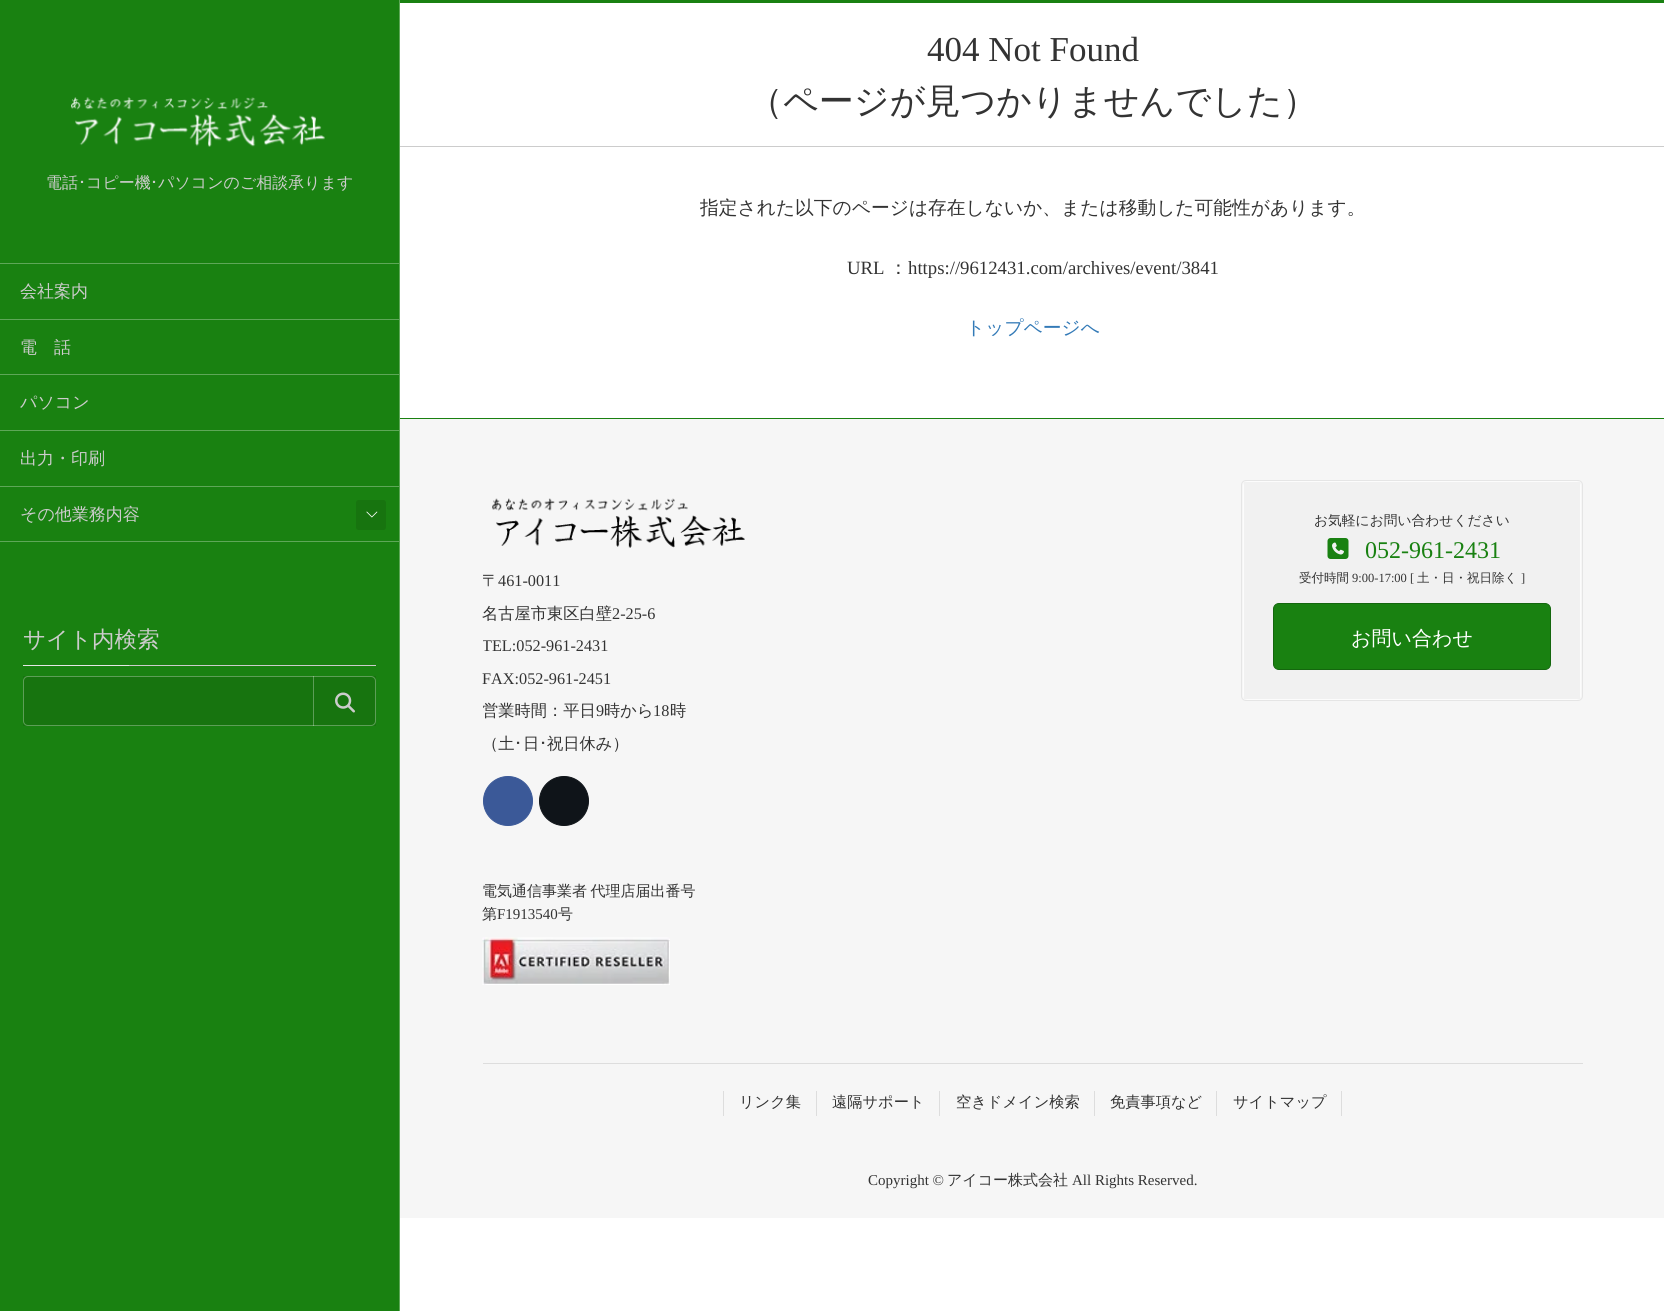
#include <cairo.h>
#include <math.h>
#include <stddef.h>

static cairo_t *ctx;

static void use_color(int r, int g, int b) {
    cairo_set_source_rgb(ctx, r / 255.0, g / 255.0, b / 255.0);
}

static void spaced_text(double x, double y, const char *s, double letter, double word) {
    cairo_move_to(ctx, x, y);
    while (*s) {
        char ch[5] = {0};
        int n = 0;
        do ch[n++] = *s++; while ((*s & 0xC0) == 0x80);
        cairo_show_text(ctx, ch);
        cairo_rel_move_to(ctx, letter + word * (*ch == ' '), 0);
    }
}

static void round_rect(double x, double y, double w, double h, double r) {
    cairo_new_sub_path(ctx);
    cairo_arc(ctx, x + w - r, y + h - r, r, 0, M_PI / 2);
    cairo_arc(ctx, x + r, y + h - r, r, M_PI / 2, M_PI);
    cairo_arc(ctx, x + r, y + r, r, M_PI, 1.5 * M_PI);
    cairo_arc(ctx, x + w - r, y + r, r, 1.5 * M_PI, 2 * M_PI);
    cairo_close_path(ctx);
}

static void picture(const char *path, double x, double y, double w, double h) {
    cairo_surface_t *image = cairo_image_surface_create_from_png(path);
    cairo_save(ctx);
    cairo_set_source_surface(ctx, image, x, y);
    cairo_rectangle(ctx, x, y, w, h);
    cairo_fill(ctx);
    cairo_restore(ctx);
    cairo_surface_destroy(image);
}

int main(void) {
    cairo_surface_t *surface = cairo_image_surface_create(CAIRO_FORMAT_RGB24, 1664, 1311);
    ctx = cairo_create(surface);
    cairo_font_options_t *options = cairo_font_options_create();
    cairo_font_options_set_hint_metrics(options, CAIRO_HINT_METRICS_OFF);
    cairo_font_options_set_hint_style(options, CAIRO_HINT_STYLE_NONE);
    cairo_set_font_options(ctx, options);
    cairo_set_miter_limit(ctx, 4);
    use_color(255, 255, 255);
    cairo_paint(ctx);
    use_color(25, 129, 17);
    cairo_rectangle(ctx, 0, 0, 399, 1311);
    cairo_fill(ctx);
    use_color(94, 167, 88);
    cairo_rectangle(ctx, 399, 0, 1, 1311);
    cairo_fill(ctx);
    picture("img1.png", 71, 97, 254, 50);
    cairo_select_font_face(ctx, "WenQuanYi Zen Hei Medium", CAIRO_FONT_SLANT_NORMAL, CAIRO_FONT_WEIGHT_NORMAL);
    cairo_set_font_size(ctx, 16);
    use_color(204, 204, 204);
    cairo_move_to(ctx, 46, 188);
    cairo_show_text(ctx, "電話");
    cairo_select_font_face(ctx, "IPAPGothic", CAIRO_FONT_SLANT_NORMAL, CAIRO_FONT_WEIGHT_NORMAL);
    cairo_move_to(ctx, 78, 188);
    cairo_show_text(ctx, "･");
    cairo_select_font_face(ctx, "WenQuanYi Zen Hei Medium", CAIRO_FONT_SLANT_NORMAL, CAIRO_FONT_WEIGHT_NORMAL);
    cairo_move_to(ctx, 86, 188);
    cairo_show_text(ctx, "コピー機");
    cairo_select_font_face(ctx, "IPAPGothic", CAIRO_FONT_SLANT_NORMAL, CAIRO_FONT_WEIGHT_NORMAL);
    cairo_move_to(ctx, 150, 188);
    cairo_show_text(ctx, "･");
    cairo_select_font_face(ctx, "WenQuanYi Zen Hei Medium", CAIRO_FONT_SLANT_NORMAL, CAIRO_FONT_WEIGHT_NORMAL);
    cairo_move_to(ctx, 158, 188);
    cairo_show_text(ctx, "パソコンのご相談承ります");
    use_color(94, 167, 88);
    cairo_rectangle(ctx, 0, 263, 399, 1);
    cairo_fill(ctx);
    cairo_set_font_size(ctx, 17);
    use_color(204, 204, 204);
    cairo_move_to(ctx, 20, 297);
    cairo_show_text(ctx, "会社案内");
    use_color(94, 167, 88);
    cairo_rectangle(ctx, 0, 319, 399, 1);
    cairo_fill(ctx);
    use_color(204, 204, 204);
    cairo_move_to(ctx, 20, 353);
    cairo_show_text(ctx, "電　話");
    use_color(94, 167, 88);
    cairo_rectangle(ctx, 0, 374, 399, 1);
    cairo_fill(ctx);
    use_color(204, 204, 204);
    cairo_move_to(ctx, 20, 408);
    cairo_show_text(ctx, "パソコン");
    use_color(94, 167, 88);
    cairo_rectangle(ctx, 0, 430, 399, 1);
    cairo_fill(ctx);
    use_color(204, 204, 204);
    cairo_move_to(ctx, 20, 464);
    cairo_show_text(ctx, "出力・印刷");
    use_color(94, 167, 88);
    cairo_rectangle(ctx, 0, 486, 399, 1);
    cairo_fill(ctx);
    cairo_rectangle(ctx, 0, 541, 399, 1);
    cairo_fill(ctx);
    use_color(204, 204, 204);
    cairo_move_to(ctx, 20, 520);
    cairo_show_text(ctx, "その他業務内容");
    use_color(23, 116, 15);
    round_rect(356, 500, 30, 30, 2.5);
    cairo_fill(ctx);
    picture("img2.png", 366, 511, 12, 7);
    use_color(204, 204, 204);
    cairo_rectangle(ctx, 129, 665, 247, 1);
    cairo_fill(ctx);
    cairo_set_font_size(ctx, 22.5);
    cairo_move_to(ctx, 23, 647);
    cairo_show_text(ctx, "サイト内検索");
    use_color(230, 230, 230);
    cairo_rectangle(ctx, 23, 665, 106, 1);
    cairo_fill(ctx);
    use_color(23, 116, 15);
    cairo_rectangle(ctx, 23, 676, 353, 50);
    cairo_fill(ctx);
    round_rect(23.5, 676.5, 352, 49, 4.5);
    use_color(93, 158, 87);
    cairo_set_line_width(ctx, 1);
    cairo_stroke(ctx);
    cairo_set_source_rgba(ctx, 1, 1, 1, 0.3);
    cairo_rectangle(ctx, 313, 676, 1, 50);
    cairo_fill(ctx);
    picture("img3.png", 335, 692, 20, 21);
    use_color(25, 129, 17);
    cairo_rectangle(ctx, 400, 0, 1264, 3);
    cairo_fill(ctx);
    use_color(204, 204, 204);
    cairo_rectangle(ctx, 400, 146, 1264, 1);
    cairo_fill(ctx);
    cairo_select_font_face(ctx, "Liberation Serif", CAIRO_FONT_SLANT_NORMAL, CAIRO_FONT_WEIGHT_NORMAL);
    cairo_set_font_size(ctx, 35);
    use_color(51, 51, 51);
    cairo_move_to(ctx, 927, 61);
    cairo_show_text(ctx, "404 Not Found");
    cairo_select_font_face(ctx, "WenQuanYi Zen Hei Medium", CAIRO_FONT_SLANT_NORMAL, CAIRO_FONT_WEIGHT_NORMAL);
    cairo_move_to(ctx, 748, 113);
    cairo_show_text(ctx, "（ページが見つかりませんでした）");
    cairo_set_font_size(ctx, 18.75);
    cairo_move_to(ctx, 700, 214);
    cairo_show_text(ctx, "指定された以下のページは存在しないか、または移動した可能性があります。");
    cairo_select_font_face(ctx, "Liberation Serif", CAIRO_FONT_SLANT_NORMAL, CAIRO_FONT_WEIGHT_NORMAL);
    cairo_move_to(ctx, 847, 274);
    cairo_show_text(ctx, "URL");
    cairo_select_font_face(ctx, "WenQuanYi Zen Hei Medium", CAIRO_FONT_SLANT_NORMAL, CAIRO_FONT_WEIGHT_NORMAL);
    cairo_move_to(ctx, 889, 274);
    cairo_show_text(ctx, "：");
    cairo_select_font_face(ctx, "Liberation Serif", CAIRO_FONT_SLANT_NORMAL, CAIRO_FONT_WEIGHT_NORMAL);
    cairo_move_to(ctx, 908, 274);
    cairo_show_text(ctx, "https://9612431.com/archives/event/3841");
    cairo_select_font_face(ctx, "WenQuanYi Zen Hei Medium", CAIRO_FONT_SLANT_NORMAL, CAIRO_FONT_WEIGHT_NORMAL);
    use_color(51, 122, 183);
    cairo_move_to(ctx, 966, 334);
    cairo_show_text(ctx, "トップページへ");
    use_color(246, 246, 246);
    cairo_rectangle(ctx, 400, 419, 1264, 799);
    cairo_fill(ctx);
    use_color(25, 129, 17);
    cairo_rectangle(ctx, 400, 418, 1264, 1);
    cairo_fill(ctx);
    picture("img4.png", 492, 498, 253, 50);
    cairo_set_font_size(ctx, 16.25);
    use_color(51, 51, 51);
    cairo_move_to(ctx, 482, 586);
    cairo_show_text(ctx, "〒");
    cairo_select_font_face(ctx, "Liberation Serif", CAIRO_FONT_SLANT_NORMAL, CAIRO_FONT_WEIGHT_NORMAL);
    cairo_move_to(ctx, 498, 586);
    cairo_show_text(ctx, "461-0011");
    cairo_select_font_face(ctx, "WenQuanYi Zen Hei Medium", CAIRO_FONT_SLANT_NORMAL, CAIRO_FONT_WEIGHT_NORMAL);
    cairo_move_to(ctx, 482, 619);
    cairo_show_text(ctx, "名古屋市東区白壁");
    cairo_select_font_face(ctx, "Liberation Serif", CAIRO_FONT_SLANT_NORMAL, CAIRO_FONT_WEIGHT_NORMAL);
    cairo_move_to(ctx, 612, 619);
    cairo_show_text(ctx, "2-25-6");
    cairo_save(ctx);
    cairo_rectangle(ctx, 483, 480, 341, 359);
    cairo_clip(ctx);
    cairo_move_to(ctx, 482, 651);
    cairo_show_text(ctx, "TEL:052-961-2431");
    cairo_restore(ctx);
    cairo_move_to(ctx, 482, 684);
    cairo_show_text(ctx, "FAX:052-961-2451");
    cairo_save(ctx);
    cairo_rectangle(ctx, 483, 480, 341, 359);
    cairo_clip(ctx);
    cairo_select_font_face(ctx, "WenQuanYi Zen Hei Medium", CAIRO_FONT_SLANT_NORMAL, CAIRO_FONT_WEIGHT_NORMAL);
    cairo_move_to(ctx, 482, 716);
    cairo_show_text(ctx, "営業時間：平日");
    cairo_restore(ctx);
    cairo_move_to(ctx, 596, 716);
    cairo_show_text(ctx, "9");
    cairo_select_font_face(ctx, "WenQuanYi Zen Hei Medium", CAIRO_FONT_SLANT_NORMAL, CAIRO_FONT_WEIGHT_NORMAL);
    cairo_move_to(ctx, 604, 716);
    cairo_show_text(ctx, "時から");
    cairo_select_font_face(ctx, "Liberation Serif", CAIRO_FONT_SLANT_NORMAL, CAIRO_FONT_WEIGHT_NORMAL);
    cairo_move_to(ctx, 653, 716);
    cairo_show_text(ctx, "18");
    cairo_select_font_face(ctx, "WenQuanYi Zen Hei Medium", CAIRO_FONT_SLANT_NORMAL, CAIRO_FONT_WEIGHT_NORMAL);
    cairo_move_to(ctx, 670, 716);
    cairo_show_text(ctx, "時");
    cairo_move_to(ctx, 482, 749);
    cairo_show_text(ctx, "（土");
    cairo_select_font_face(ctx, "IPAPGothic", CAIRO_FONT_SLANT_NORMAL, CAIRO_FONT_WEIGHT_NORMAL);
    cairo_move_to(ctx, 514, 749);
    cairo_show_text(ctx, "･");
    cairo_select_font_face(ctx, "WenQuanYi Zen Hei Medium", CAIRO_FONT_SLANT_NORMAL, CAIRO_FONT_WEIGHT_NORMAL);
    cairo_move_to(ctx, 523, 749);
    cairo_show_text(ctx, "日");
    cairo_select_font_face(ctx, "IPAPGothic", CAIRO_FONT_SLANT_NORMAL, CAIRO_FONT_WEIGHT_NORMAL);
    cairo_move_to(ctx, 539, 749);
    cairo_show_text(ctx, "･");
    cairo_select_font_face(ctx, "WenQuanYi Zen Hei Medium", CAIRO_FONT_SLANT_NORMAL, CAIRO_FONT_WEIGHT_NORMAL);
    cairo_move_to(ctx, 547, 749);
    cairo_show_text(ctx, "祝日休み）");
    use_color(59, 89, 152);
    cairo_new_path(ctx);
    cairo_arc(ctx, 508, 801, 24.5, 0, 2 * M_PI);
    cairo_fill_preserve(ctx);
    cairo_stroke(ctx);
    use_color(15, 20, 25);
    cairo_arc(ctx, 564, 801, 24.5, 0, 2 * M_PI);
    cairo_fill_preserve(ctx);
    cairo_stroke(ctx);
    cairo_set_font_size(ctx, 15);
    use_color(51, 51, 51);
    spaced_text(482, 896, "電気通信事業者 代理店届出番号", 0, -1);
    cairo_move_to(ctx, 482, 919);
    cairo_show_text(ctx, "第");
    cairo_select_font_face(ctx, "Liberation Serif", CAIRO_FONT_SLANT_NORMAL, CAIRO_FONT_WEIGHT_NORMAL);
    cairo_move_to(ctx, 497, 919);
    cairo_show_text(ctx, "F1913540");
    cairo_select_font_face(ctx, "WenQuanYi Zen Hei Medium", CAIRO_FONT_SLANT_NORMAL, CAIRO_FONT_WEIGHT_NORMAL);
    cairo_move_to(ctx, 558, 919);
    cairo_show_text(ctx, "号");
    picture("img5.png", 482, 937, 188, 48);
    round_rect(1241.5, 480.5, 341, 220, 4.5);
    use_color(229, 229, 229);
    cairo_stroke(ctx);
    use_color(241, 241, 241);
    round_rect(1243, 481, 338, 219, 4);
    cairo_fill(ctx);
    use_color(252, 252, 252);
    cairo_set_fill_rule(ctx, CAIRO_FILL_RULE_EVEN_ODD);
    cairo_new_path(ctx);
    cairo_move_to(ctx, 1243, 485);
    cairo_line_to(ctx, 1243, 696);
    cairo_line_to(ctx, 1244, 699);
    cairo_line_to(ctx, 1244, 482);
    cairo_close_path(ctx);
    cairo_move_to(ctx, 1247, 481);
    cairo_line_to(ctx, 1244, 482);
    cairo_line_to(ctx, 1580, 482);
    cairo_line_to(ctx, 1577, 481);
    cairo_close_path(ctx);
    cairo_move_to(ctx, 1581, 485);
    cairo_line_to(ctx, 1580, 482);
    cairo_line_to(ctx, 1580, 699);
    cairo_line_to(ctx, 1581, 696);
    cairo_close_path(ctx);
    cairo_move_to(ctx, 1577, 700);
    cairo_line_to(ctx, 1580, 699);
    cairo_line_to(ctx, 1244, 699);
    cairo_line_to(ctx, 1247, 700);
    cairo_close_path(ctx);
    cairo_fill(ctx);
    cairo_set_font_size(ctx, 13.75);
    use_color(51, 51, 51);
    cairo_move_to(ctx, 1314, 525);
    cairo_show_text(ctx, "お気軽にお問い合わせください");
    picture("img6.png", 1327, 538, 22, 21);
    cairo_select_font_face(ctx, "Liberation Serif", CAIRO_FONT_SLANT_NORMAL, CAIRO_FONT_WEIGHT_NORMAL);
    cairo_set_font_size(ctx, 24);
    use_color(25, 129, 17);
    cairo_move_to(ctx, 1365, 558);
    cairo_show_text(ctx, "052-961-2431");
    cairo_select_font_face(ctx, "WenQuanYi Zen Hei Medium", CAIRO_FONT_SLANT_NORMAL, CAIRO_FONT_WEIGHT_NORMAL);
    cairo_set_font_size(ctx, 12.5);
    use_color(51, 51, 51);
    cairo_move_to(ctx, 1299, 582);
    cairo_show_text(ctx, "受付時間");
    cairo_select_font_face(ctx, "Liberation Serif", CAIRO_FONT_SLANT_NORMAL, CAIRO_FONT_WEIGHT_NORMAL);
    cairo_move_to(ctx, 1352, 582);
    cairo_show_text(ctx, "9:00-17:00 [");
    cairo_select_font_face(ctx, "WenQuanYi Zen Hei Medium", CAIRO_FONT_SLANT_NORMAL, CAIRO_FONT_WEIGHT_NORMAL);
    cairo_move_to(ctx, 1417, 582);
    cairo_show_text(ctx, "土・日・祝日除く");
    cairo_select_font_face(ctx, "Liberation Serif", CAIRO_FONT_SLANT_NORMAL, CAIRO_FONT_WEIGHT_NORMAL);
    cairo_move_to(ctx, 1521, 582);
    cairo_show_text(ctx, "]");
    use_color(25, 129, 17);
    round_rect(1273.5, 603.5, 277, 66, 5.5);
    cairo_fill_preserve(ctx);
    use_color(20, 103, 14);
    cairo_stroke(ctx);
    cairo_select_font_face(ctx, "WenQuanYi Zen Hei Medium", CAIRO_FONT_SLANT_NORMAL, CAIRO_FONT_WEIGHT_NORMAL);
    cairo_set_font_size(ctx, 20);
    use_color(255, 255, 255);
    cairo_move_to(ctx, 1351, 645);
    cairo_show_text(ctx, "お問い合わせ");
    use_color(221, 221, 221);
    cairo_rectangle(ctx, 483, 1063, 1100, 1);
    cairo_fill(ctx);
    cairo_rectangle(ctx, 723, 1091, 1, 25);
    cairo_fill(ctx);
    cairo_set_font_size(ctx, 15.25);
    use_color(51, 51, 51);
    cairo_move_to(ctx, 739, 1107);
    cairo_show_text(ctx, "リンク集");
    use_color(221, 221, 221);
    cairo_rectangle(ctx, 816, 1091, 1, 25);
    cairo_fill(ctx);
    use_color(51, 51, 51);
    cairo_move_to(ctx, 832, 1107);
    cairo_show_text(ctx, "遠隔サポート");
    use_color(221, 221, 221);
    cairo_rectangle(ctx, 939, 1091, 1, 25);
    cairo_fill(ctx);
    use_color(51, 51, 51);
    cairo_move_to(ctx, 956, 1107);
    cairo_show_text(ctx, "空きドメイン検索");
    use_color(221, 221, 221);
    cairo_rectangle(ctx, 1094, 1091, 1, 25);
    cairo_fill(ctx);
    use_color(51, 51, 51);
    cairo_move_to(ctx, 1110, 1107);
    cairo_show_text(ctx, "免責事項など");
    use_color(221, 221, 221);
    cairo_rectangle(ctx, 1341, 1091, 1, 25);
    cairo_fill(ctx);
    cairo_rectangle(ctx, 1216, 1091, 1, 25);
    cairo_fill(ctx);
    use_color(51, 51, 51);
    cairo_move_to(ctx, 1233, 1107);
    cairo_show_text(ctx, "サイトマップ");
    cairo_select_font_face(ctx, "Liberation Serif", CAIRO_FONT_SLANT_NORMAL, CAIRO_FONT_WEIGHT_NORMAL);
    cairo_set_font_size(ctx, 15);
    cairo_move_to(ctx, 868, 1185);
    cairo_show_text(ctx, "Copyright ©");
    cairo_select_font_face(ctx, "WenQuanYi Zen Hei Medium", CAIRO_FONT_SLANT_NORMAL, CAIRO_FONT_WEIGHT_NORMAL);
    cairo_move_to(ctx, 947, 1185);
    cairo_show_text(ctx, "アイコー株式会社");
    cairo_select_font_face(ctx, "Liberation Serif", CAIRO_FONT_SLANT_NORMAL, CAIRO_FONT_WEIGHT_NORMAL);
    cairo_move_to(ctx, 1072, 1185);
    cairo_show_text(ctx, "All Rights Reserved.");
    cairo_surface_write_to_png(surface, "result.png");
    cairo_font_options_destroy(options);
    cairo_destroy(ctx);
    cairo_surface_destroy(surface);
    return 0;
}
